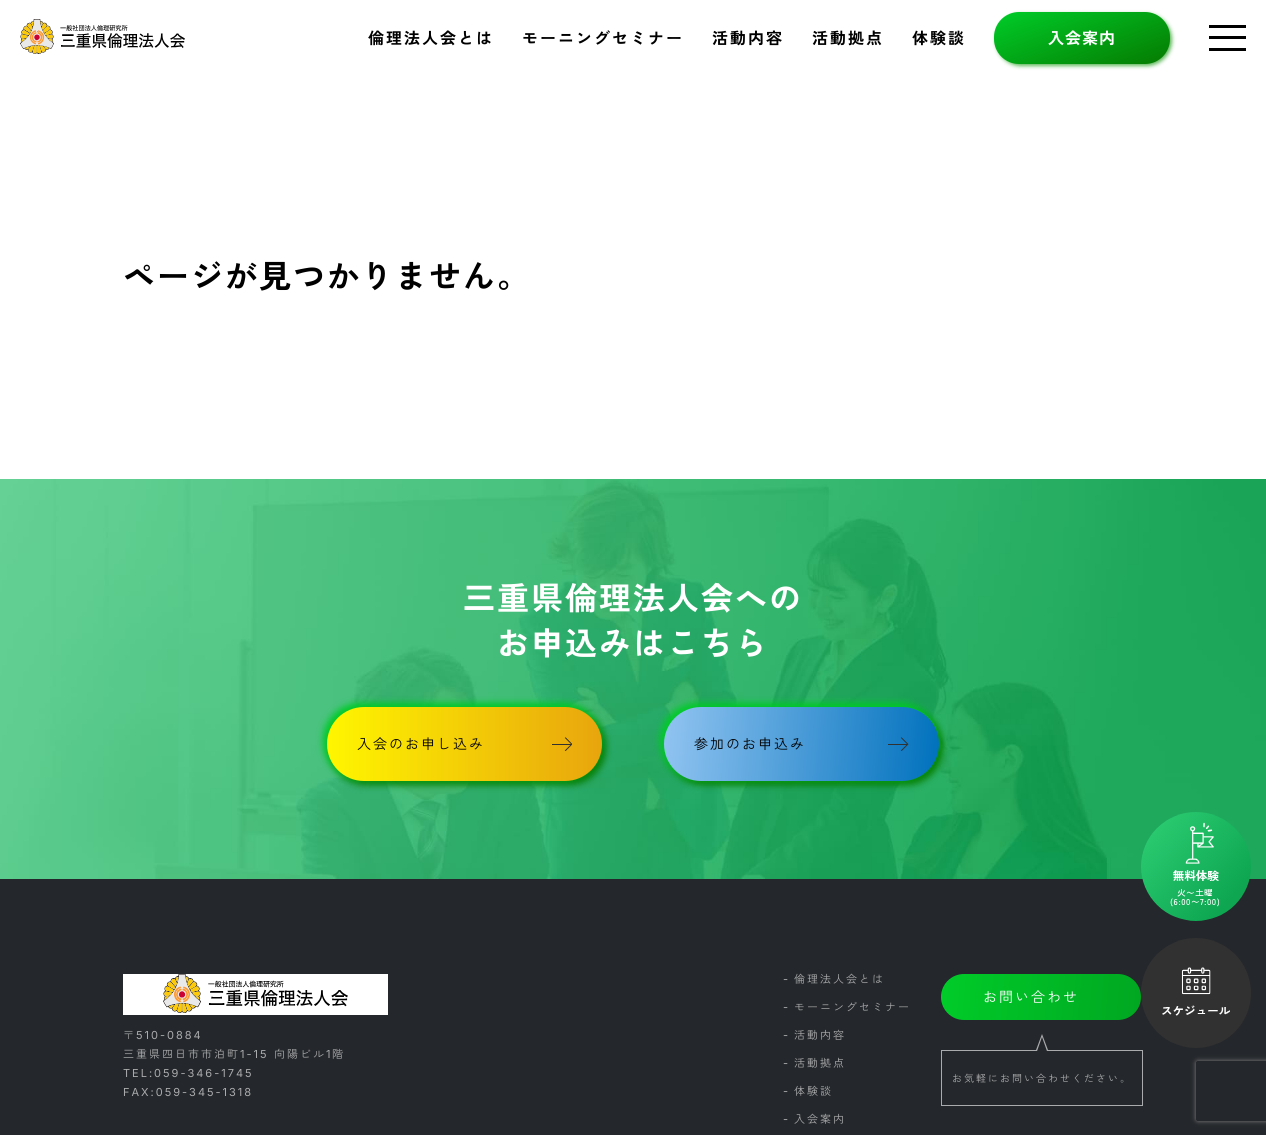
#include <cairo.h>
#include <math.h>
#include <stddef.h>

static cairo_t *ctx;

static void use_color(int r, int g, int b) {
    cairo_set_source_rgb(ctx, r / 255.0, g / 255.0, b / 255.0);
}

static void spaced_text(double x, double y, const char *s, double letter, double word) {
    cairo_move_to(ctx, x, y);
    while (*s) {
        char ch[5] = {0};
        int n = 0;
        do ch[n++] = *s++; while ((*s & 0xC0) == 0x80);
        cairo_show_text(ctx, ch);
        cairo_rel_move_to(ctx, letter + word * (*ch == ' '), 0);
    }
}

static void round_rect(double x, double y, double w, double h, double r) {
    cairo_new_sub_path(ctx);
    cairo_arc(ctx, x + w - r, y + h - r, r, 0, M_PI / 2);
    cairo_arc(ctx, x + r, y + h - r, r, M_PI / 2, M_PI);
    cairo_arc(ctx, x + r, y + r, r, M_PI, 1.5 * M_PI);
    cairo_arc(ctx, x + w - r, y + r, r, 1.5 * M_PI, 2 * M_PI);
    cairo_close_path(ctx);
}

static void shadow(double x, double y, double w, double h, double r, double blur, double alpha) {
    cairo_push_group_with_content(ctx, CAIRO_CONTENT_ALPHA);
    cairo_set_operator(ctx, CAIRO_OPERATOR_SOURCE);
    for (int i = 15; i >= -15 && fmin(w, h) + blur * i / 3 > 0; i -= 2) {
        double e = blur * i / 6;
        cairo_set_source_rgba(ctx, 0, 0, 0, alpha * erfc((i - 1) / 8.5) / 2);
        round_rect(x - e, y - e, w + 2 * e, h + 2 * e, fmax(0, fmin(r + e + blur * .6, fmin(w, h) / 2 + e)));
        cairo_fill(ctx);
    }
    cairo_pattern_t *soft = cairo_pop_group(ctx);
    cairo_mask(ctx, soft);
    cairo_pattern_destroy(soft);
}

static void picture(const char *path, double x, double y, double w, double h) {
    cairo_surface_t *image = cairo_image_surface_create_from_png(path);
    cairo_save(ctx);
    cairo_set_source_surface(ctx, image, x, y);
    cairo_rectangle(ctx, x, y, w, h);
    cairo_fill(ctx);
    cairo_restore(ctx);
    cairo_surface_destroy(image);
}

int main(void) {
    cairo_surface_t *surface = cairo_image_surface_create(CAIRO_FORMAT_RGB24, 1266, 1135);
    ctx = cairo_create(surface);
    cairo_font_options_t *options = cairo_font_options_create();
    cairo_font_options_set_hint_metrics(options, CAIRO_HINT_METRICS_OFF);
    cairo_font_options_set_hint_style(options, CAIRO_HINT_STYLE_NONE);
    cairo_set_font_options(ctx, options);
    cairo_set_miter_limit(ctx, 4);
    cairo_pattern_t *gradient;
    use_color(255, 255, 255);
    cairo_paint(ctx);
    picture("img1.png", 20, 19, 165, 35);
    cairo_select_font_face(ctx, "Zen Kaku Gothic New", CAIRO_FONT_SLANT_NORMAL, CAIRO_FONT_WEIGHT_BOLD);
    cairo_set_font_size(ctx, 16);
    use_color(0, 0, 0);
    spaced_text(368, 44, "倫理法人会とは", 2, 0);
    spaced_text(522, 44, "モーニングセミナー", 2, 0);
    spaced_text(712, 44, "活動内容", 2, 0);
    spaced_text(812, 44, "活動拠点", 2, 0);
    spaced_text(912, 44, "体験談", 2, 0);
    use_color(255, 255, 255);
    shadow(991, 9, 176, 52, 25, 2.5, 1);
    use_color(94, 185, 90);
    shadow(996, 14, 176, 52, 25, 2, 1);
    gradient = cairo_pattern_create_linear(1063, -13, 1101, 89);
    cairo_pattern_add_color_stop_rgba(gradient, 0, 0, 0.8, 0.161, 1);
    cairo_pattern_add_color_stop_rgba(gradient, 1, 0.02, 0.482, 0, 1);
    cairo_set_source(ctx, gradient);
    cairo_pattern_destroy(gradient);
    round_rect(994, 12, 176, 52, 25);
    cairo_fill(ctx);
    use_color(255, 255, 255);
    spaced_text(1048, 44, "入会案内", 1, 0);
    use_color(0, 0, 0);
    cairo_rectangle(ctx, 1209, 25, 37, 3);
    cairo_fill(ctx);
    cairo_rectangle(ctx, 1209, 36, 37, 3);
    cairo_fill(ctx);
    cairo_rectangle(ctx, 1209, 48, 37, 3);
    cairo_fill(ctx);
    cairo_set_font_size(ctx, 32);
    spaced_text(123, 288, "ページが見つかりません。", 2, 0);
    picture("img2.png", 0, 479, 1266, 400);
    use_color(255, 255, 255);
    spaced_text(463, 610, "三重県倫理法人会への", 2, 0);
    spaced_text(497, 655, "お申込みはこちら", 2, 0);
    use_color(5, 123, 0);
    shadow(329, 709, 277, 76, 38, 3.5, 1);
    use_color(0, 204, 41);
    shadow(323, 703, 277, 76, 38, 3.5, 1);
    gradient = cairo_pattern_create_linear(327, 744, 602, 744);
    cairo_pattern_add_color_stop_rgba(gradient, 0, 1, 0.965, 0, 1);
    cairo_pattern_add_color_stop_rgba(gradient, 1, 0.91, 0.647, 0.051, 1);
    cairo_set_source(ctx, gradient);
    cairo_pattern_destroy(gradient);
    round_rect(327, 707, 275, 74, 37);
    cairo_fill(ctx);
    cairo_select_font_face(ctx, "Zen Kaku Gothic New", CAIRO_FONT_SLANT_NORMAL, CAIRO_FONT_WEIGHT_NORMAL);
    cairo_set_font_size(ctx, 14);
    use_color(0, 0, 0);
    spaced_text(357, 749, "入会のお申し込み", 2, 0);
    picture("img3.png", 552, 737, 20, 14);
    use_color(5, 123, 0);
    shadow(666, 709, 277, 76, 38, 3.5, 1);
    use_color(0, 204, 41);
    shadow(660, 703, 277, 76, 38, 3.5, 1);
    gradient = cairo_pattern_create_linear(662, 732, 941, 756);
    cairo_pattern_add_color_stop_rgba(gradient, 0, 0.569, 0.769, 0.945, 1);
    cairo_pattern_add_color_stop_rgba(gradient, 1, 0, 0.443, 0.741, 1);
    cairo_set_source(ctx, gradient);
    cairo_pattern_destroy(gradient);
    round_rect(664, 707, 275, 74, 37);
    cairo_fill(ctx);
    use_color(0, 0, 0);
    spaced_text(694, 749, "参加のお申込み", 2, 0);
    picture("img4.png", 888, 737, 21, 14);
    use_color(36, 39, 43);
    cairo_rectangle(ctx, 0, 879, 1266, 256);
    cairo_fill(ctx);
    use_color(255, 255, 255);
    cairo_rectangle(ctx, 123, 974, 265, 41);
    cairo_fill(ctx);
    picture("img5.png", 163, 974, 185, 39);
    cairo_set_font_size(ctx, 11);
    use_color(170, 171, 172);
    spaced_text(123, 1039, "〒", 2, 0);
    cairo_select_font_face(ctx, "Inter", CAIRO_FONT_SLANT_NORMAL, CAIRO_FONT_WEIGHT_NORMAL);
    spaced_text(136, 1039, "510-0884", 2, 0);
    cairo_select_font_face(ctx, "Zen Kaku Gothic New", CAIRO_FONT_SLANT_NORMAL, CAIRO_FONT_WEIGHT_NORMAL);
    spaced_text(123, 1058, "三重県四日市市泊町", 2, 0);
    cairo_select_font_face(ctx, "Inter", CAIRO_FONT_SLANT_NORMAL, CAIRO_FONT_WEIGHT_NORMAL);
    spaced_text(240, 1058, "1-15", 2, 0);
    cairo_select_font_face(ctx, "Zen Kaku Gothic New", CAIRO_FONT_SLANT_NORMAL, CAIRO_FONT_WEIGHT_NORMAL);
    spaced_text(274, 1058, "向陽ビル", 2, 0);
    cairo_select_font_face(ctx, "Inter", CAIRO_FONT_SLANT_NORMAL, CAIRO_FONT_WEIGHT_NORMAL);
    spaced_text(326, 1058, "1", 2, 0);
    cairo_select_font_face(ctx, "Zen Kaku Gothic New", CAIRO_FONT_SLANT_NORMAL, CAIRO_FONT_WEIGHT_NORMAL);
    spaced_text(332, 1058, "階", 2, 0);
    cairo_select_font_face(ctx, "Inter", CAIRO_FONT_SLANT_NORMAL, CAIRO_FONT_WEIGHT_NORMAL);
    spaced_text(123, 1077, "TEL:059-346-1745", 2, 0);
    spaced_text(123, 1096, "FAX:059-345-1318", 2, 0);
    spaced_text(783, 983, "-", 2, 0);
    cairo_select_font_face(ctx, "Zen Kaku Gothic New", CAIRO_FONT_SLANT_NORMAL, CAIRO_FONT_WEIGHT_NORMAL);
    spaced_text(794, 983, "倫理法人会とは", 2, 0);
    cairo_select_font_face(ctx, "Inter", CAIRO_FONT_SLANT_NORMAL, CAIRO_FONT_WEIGHT_NORMAL);
    spaced_text(783, 1011, "-", 2, 0);
    cairo_select_font_face(ctx, "Zen Kaku Gothic New", CAIRO_FONT_SLANT_NORMAL, CAIRO_FONT_WEIGHT_NORMAL);
    spaced_text(794, 1011, "モーニングセミナー", 2, 0);
    cairo_select_font_face(ctx, "Inter", CAIRO_FONT_SLANT_NORMAL, CAIRO_FONT_WEIGHT_NORMAL);
    spaced_text(783, 1039, "-", 2, 0);
    cairo_select_font_face(ctx, "Zen Kaku Gothic New", CAIRO_FONT_SLANT_NORMAL, CAIRO_FONT_WEIGHT_NORMAL);
    spaced_text(794, 1039, "活動内容", 2, 0);
    cairo_select_font_face(ctx, "Inter", CAIRO_FONT_SLANT_NORMAL, CAIRO_FONT_WEIGHT_NORMAL);
    spaced_text(783, 1067, "-", 2, 0);
    cairo_select_font_face(ctx, "Zen Kaku Gothic New", CAIRO_FONT_SLANT_NORMAL, CAIRO_FONT_WEIGHT_NORMAL);
    spaced_text(794, 1067, "活動拠点", 2, 0);
    cairo_select_font_face(ctx, "Inter", CAIRO_FONT_SLANT_NORMAL, CAIRO_FONT_WEIGHT_NORMAL);
    spaced_text(783, 1095, "-", 2, 0);
    cairo_select_font_face(ctx, "Zen Kaku Gothic New", CAIRO_FONT_SLANT_NORMAL, CAIRO_FONT_WEIGHT_NORMAL);
    spaced_text(794, 1095, "体験談", 2, 0);
    cairo_select_font_face(ctx, "Inter", CAIRO_FONT_SLANT_NORMAL, CAIRO_FONT_WEIGHT_NORMAL);
    spaced_text(783, 1123, "-", 2, 0);
    cairo_select_font_face(ctx, "Zen Kaku Gothic New", CAIRO_FONT_SLANT_NORMAL, CAIRO_FONT_WEIGHT_NORMAL);
    spaced_text(794, 1123, "入会案内", 2, 0);
    gradient = cairo_pattern_create_linear(940, 988, 1142, 1006);
    cairo_pattern_add_color_stop_rgba(gradient, 0, 0, 0.8, 0.161, 1);
    cairo_pattern_add_color_stop_rgba(gradient, 1, 0, 0.655, 0.129, 1);
    cairo_set_source(ctx, gradient);
    cairo_pattern_destroy(gradient);
    round_rect(941, 974, 200, 46, 23);
    cairo_fill(ctx);
    cairo_set_font_size(ctx, 14);
    use_color(255, 255, 255);
    spaced_text(983, 1002, "お問い合わせ", 2, 0);
    cairo_rectangle(ctx, 941.5, 1050.5, 201, 55);
    use_color(170, 171, 172);
    cairo_set_line_width(ctx, 1);
    cairo_stroke(ctx);
    cairo_new_path(ctx);
    cairo_move_to(ctx, 1048, 1050);
    cairo_line_to(ctx, 1036, 1050);
    cairo_line_to(ctx, 1042, 1034);
    cairo_close_path(ctx);
    cairo_fill(ctx);
    use_color(36, 39, 43);
    cairo_new_path(ctx);
    cairo_move_to(ctx, 1048, 1054);
    cairo_line_to(ctx, 1036, 1054);
    cairo_line_to(ctx, 1042, 1037);
    cairo_close_path(ctx);
    cairo_fill(ctx);
    cairo_set_font_size(ctx, 10);
    use_color(170, 171, 172);
    spaced_text(952, 1082, "お気軽にお問い合わせください。", 2, 0);
    picture("img6.png", 1141, 812, 110, 109);
    picture("img7.png", 1141, 938, 110, 110);
    cairo_save(ctx);
    cairo_set_fill_rule(ctx, CAIRO_FILL_RULE_EVEN_ODD);
    cairo_new_path(ctx);
    cairo_move_to(ctx, 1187, 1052);
    cairo_line_to(ctx, 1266, 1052);
    cairo_line_to(ctx, 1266, 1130);
    cairo_line_to(ctx, 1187, 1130);
    cairo_close_path(ctx);
    cairo_move_to(ctx, 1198, 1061);
    cairo_line_to(ctx, 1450, 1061);
    cairo_curve_to(ctx, 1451, 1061, 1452, 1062, 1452, 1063);
    cairo_line_to(ctx, 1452, 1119);
    cairo_curve_to(ctx, 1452, 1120, 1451, 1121, 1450, 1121);
    cairo_line_to(ctx, 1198, 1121);
    cairo_curve_to(ctx, 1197, 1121, 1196, 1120, 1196, 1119);
    cairo_line_to(ctx, 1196, 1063);
    cairo_curve_to(ctx, 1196, 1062, 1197, 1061, 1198, 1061);
    cairo_close_path(ctx);
    cairo_clip(ctx);
    use_color(128, 128, 128);
    shadow(1196, 1061, 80, 60, 2, 2.5, 1);
    cairo_restore(ctx);
    cairo_surface_write_to_png(surface, "result.png");
    cairo_font_options_destroy(options);
    cairo_destroy(ctx);
    cairo_surface_destroy(surface);
    return 0;
}
